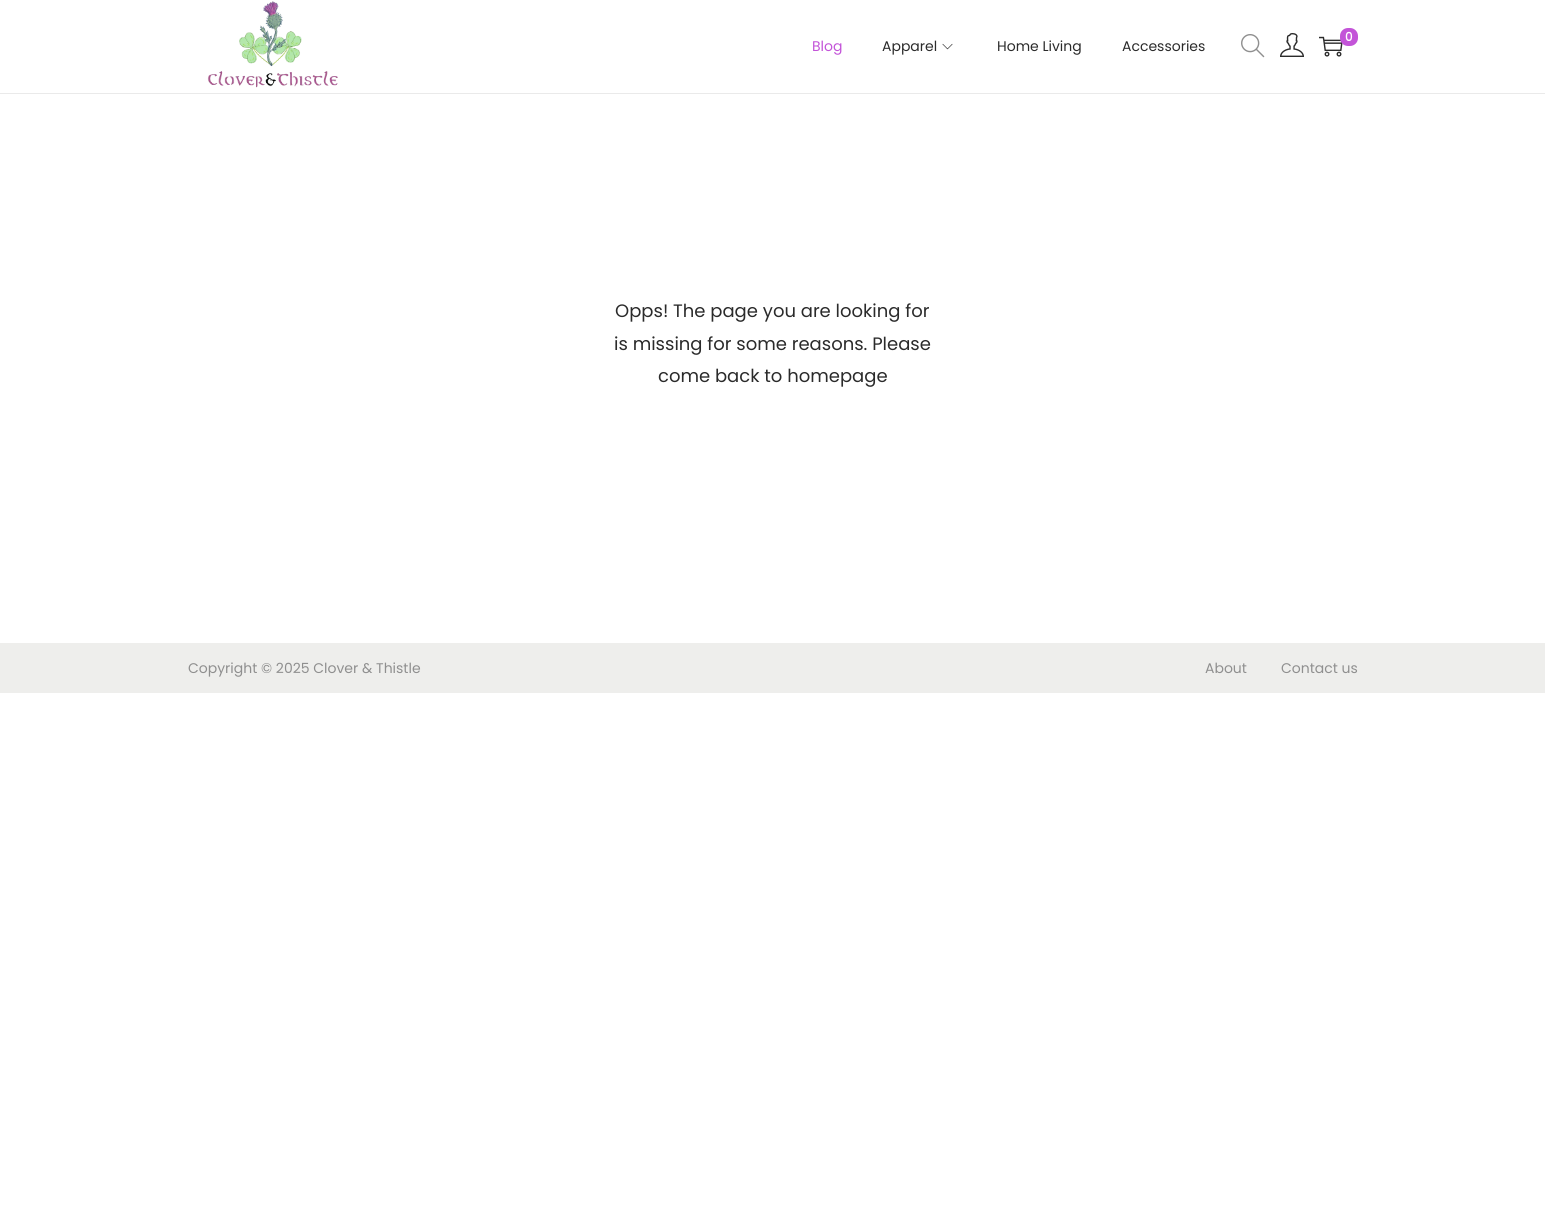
#include <cairo.h>
#include <math.h>
#include <stddef.h>

static cairo_t *ctx;

static void use_color(int r, int g, int b) {
    cairo_set_source_rgb(ctx, r / 255.0, g / 255.0, b / 255.0);
}

static void round_rect(double x, double y, double w, double h, double r) {
    cairo_new_sub_path(ctx);
    cairo_arc(ctx, x + w - r, y + h - r, r, 0, M_PI / 2);
    cairo_arc(ctx, x + r, y + h - r, r, M_PI / 2, M_PI);
    cairo_arc(ctx, x + r, y + r, r, M_PI, 1.5 * M_PI);
    cairo_arc(ctx, x + w - r, y + r, r, 1.5 * M_PI, 2 * M_PI);
    cairo_close_path(ctx);
}

static void picture(const char *path, double x, double y, double w, double h) {
    cairo_surface_t *image = cairo_image_surface_create_from_png(path);
    cairo_save(ctx);
    cairo_set_source_surface(ctx, image, x, y);
    cairo_rectangle(ctx, x, y, w, h);
    cairo_fill(ctx);
    cairo_restore(ctx);
    cairo_surface_destroy(image);
}

int main(void) {
    cairo_surface_t *surface = cairo_image_surface_create(CAIRO_FORMAT_RGB24, 1545, 1228);
    ctx = cairo_create(surface);
    cairo_font_options_t *options = cairo_font_options_create();
    cairo_font_options_set_hint_metrics(options, CAIRO_HINT_METRICS_OFF);
    cairo_font_options_set_hint_style(options, CAIRO_HINT_STYLE_NONE);
    cairo_set_font_options(ctx, options);
    cairo_set_miter_limit(ctx, 4);
    use_color(255, 255, 255);
    cairo_paint(ctx);
    use_color(234, 234, 234);
    cairo_rectangle(ctx, 0, 93, 1545, 1);
    cairo_fill(ctx);
    picture("img1.png", 207, 1, 131, 87);
    picture("img2.png", 1241, 34, 24, 24);
    picture("img3.png", 1280, 33, 24, 24);
    picture("img4.png", 1319, 36, 24, 21);
    use_color(195, 84, 216);
    round_rect(1340, 28, 18, 18, 8);
    cairo_fill(ctx);
    cairo_select_font_face(ctx, "Poppins", CAIRO_FONT_SLANT_NORMAL, CAIRO_FONT_WEIGHT_BOLD);
    cairo_set_font_size(ctx, 12);
    use_color(255, 255, 255);
    cairo_move_to(ctx, 1345, 41);
    cairo_show_text(ctx, "0");
    cairo_select_font_face(ctx, "Poppins", CAIRO_FONT_SLANT_NORMAL, CAIRO_FONT_WEIGHT_NORMAL);
    cairo_set_font_size(ctx, 14);
    use_color(195, 84, 216);
    cairo_move_to(ctx, 812, 51);
    cairo_show_text(ctx, "Blog");
    use_color(43, 43, 43);
    cairo_move_to(ctx, 882, 51);
    cairo_show_text(ctx, "Apparel");
    picture("img5.png", 942, 43, 11, 7);
    cairo_move_to(ctx, 997, 51);
    cairo_show_text(ctx, "Home Living");
    cairo_move_to(ctx, 1122, 51);
    cairo_show_text(ctx, "Accessories");
    cairo_set_font_size(ctx, 18);
    cairo_move_to(ctx, 615, 317);
    cairo_show_text(ctx, "Opps! The page you are looking for");
    cairo_move_to(ctx, 614, 350);
    cairo_show_text(ctx, "is missing for some reasons. Please");
    cairo_move_to(ctx, 658, 382);
    cairo_show_text(ctx, "come back to homepage");
    use_color(238, 238, 236);
    cairo_rectangle(ctx, 0, 643, 1545, 50);
    cairo_fill(ctx);
    cairo_set_font_size(ctx, 14);
    use_color(143, 143, 143);
    cairo_move_to(ctx, 188, 673);
    cairo_show_text(ctx, "Copyright © 2025 Clover & Thistle");
    cairo_move_to(ctx, 1205, 673);
    cairo_show_text(ctx, "About");
    cairo_move_to(ctx, 1281, 673);
    cairo_show_text(ctx, "Contact us");
    cairo_surface_write_to_png(surface, "result.png");
    cairo_font_options_destroy(options);
    cairo_destroy(ctx);
    cairo_surface_destroy(surface);
    return 0;
}
